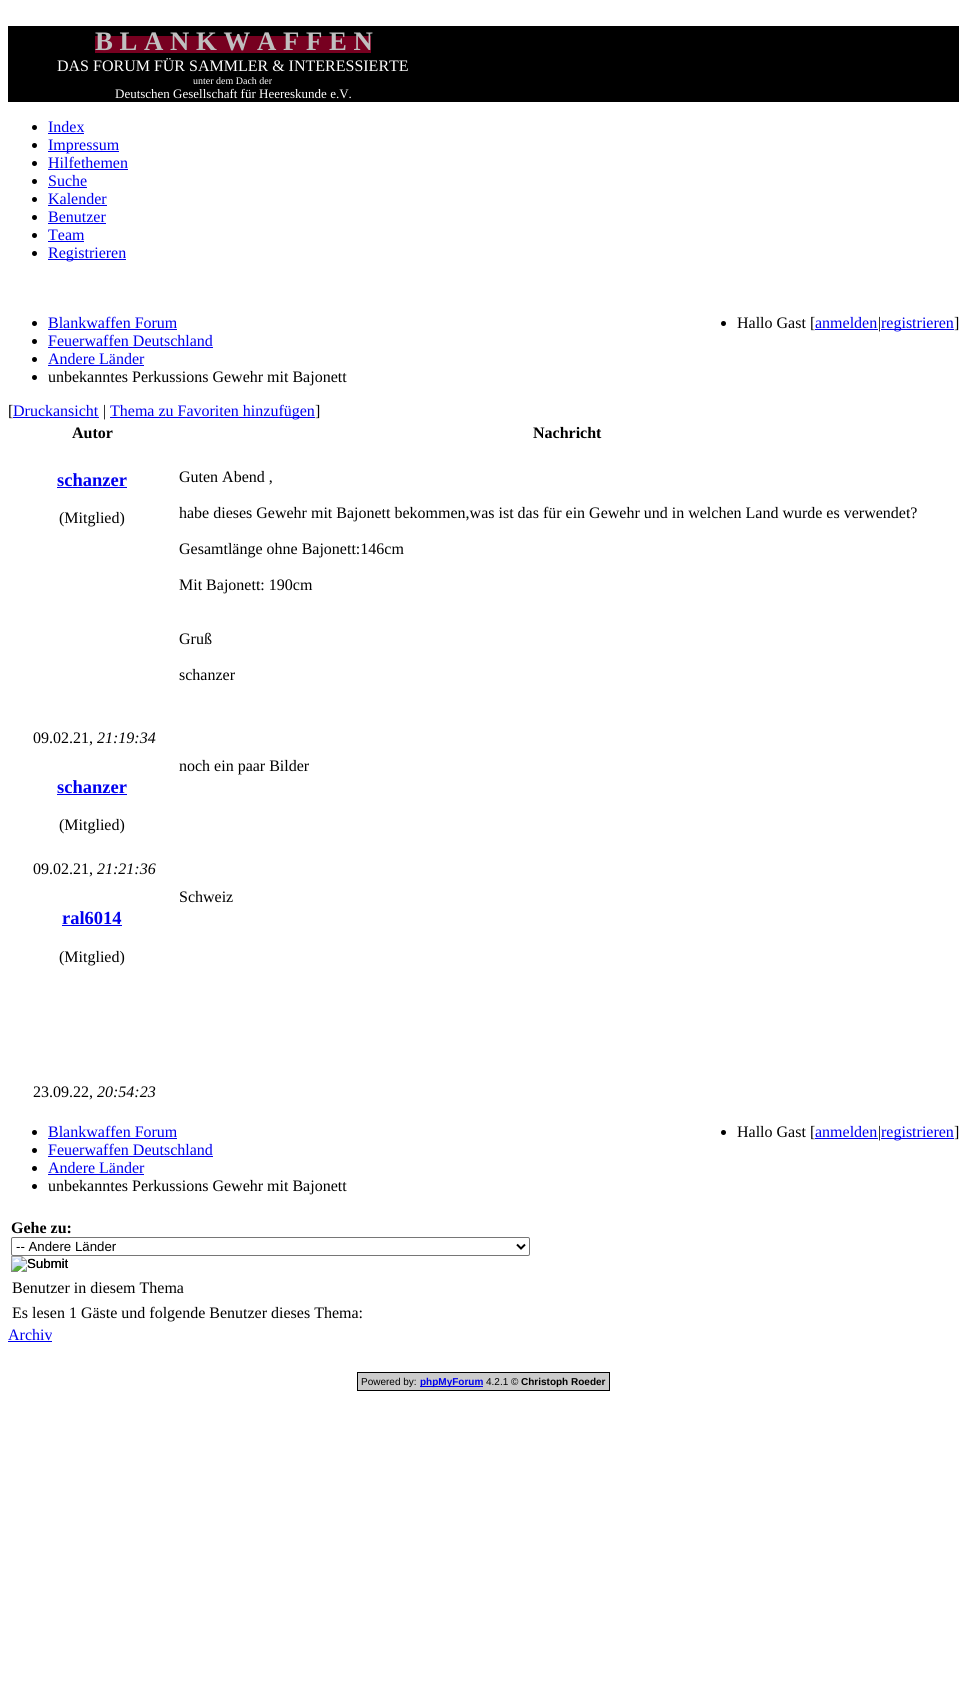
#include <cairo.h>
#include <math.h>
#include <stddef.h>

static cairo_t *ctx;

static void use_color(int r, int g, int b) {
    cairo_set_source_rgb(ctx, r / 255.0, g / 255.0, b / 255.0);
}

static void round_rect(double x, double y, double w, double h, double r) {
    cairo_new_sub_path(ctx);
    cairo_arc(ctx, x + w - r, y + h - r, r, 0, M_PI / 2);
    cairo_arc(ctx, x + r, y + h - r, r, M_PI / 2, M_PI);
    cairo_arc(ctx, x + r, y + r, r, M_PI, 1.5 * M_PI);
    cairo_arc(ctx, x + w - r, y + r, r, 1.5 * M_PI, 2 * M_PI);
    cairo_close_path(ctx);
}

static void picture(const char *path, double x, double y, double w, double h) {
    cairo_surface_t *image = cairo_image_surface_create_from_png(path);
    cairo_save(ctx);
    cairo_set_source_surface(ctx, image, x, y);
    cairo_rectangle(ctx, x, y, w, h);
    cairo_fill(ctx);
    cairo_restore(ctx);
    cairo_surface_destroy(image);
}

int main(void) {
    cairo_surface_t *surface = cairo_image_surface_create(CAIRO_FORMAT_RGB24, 967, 1689);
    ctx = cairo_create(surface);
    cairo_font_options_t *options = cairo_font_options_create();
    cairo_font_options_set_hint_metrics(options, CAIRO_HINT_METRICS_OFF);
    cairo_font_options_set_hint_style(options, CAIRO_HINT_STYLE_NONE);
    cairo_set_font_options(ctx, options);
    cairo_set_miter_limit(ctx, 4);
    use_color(255, 255, 255);
    cairo_paint(ctx);
    use_color(0, 0, 0);
    cairo_rectangle(ctx, 8, 26, 951, 76);
    cairo_fill(ctx);
    use_color(119, 0, 32);
    cairo_rectangle(ctx, 95, 36, 276, 17);
    cairo_fill(ctx);
    cairo_select_font_face(ctx, "Liberation Serif", CAIRO_FONT_SLANT_NORMAL, CAIRO_FONT_WEIGHT_BOLD);
    cairo_set_font_size(ctx, 26.75);
    use_color(192, 192, 192);
    cairo_move_to(ctx, 95, 50);
    cairo_show_text(ctx, "B L A N K W A F F E N");
    cairo_select_font_face(ctx, "Liberation Serif", CAIRO_FONT_SLANT_NORMAL, CAIRO_FONT_WEIGHT_NORMAL);
    cairo_set_font_size(ctx, 16);
    use_color(255, 255, 255);
    cairo_move_to(ctx, 57, 71);
    cairo_show_text(ctx, "DAS FORUM FÜR SAMMLER & INTERESSIERTE");
    cairo_set_font_size(ctx, 10);
    cairo_move_to(ctx, 193, 84);
    cairo_show_text(ctx, "unter dem Dach der");
    cairo_set_font_size(ctx, 13);
    cairo_move_to(ctx, 115, 98);
    cairo_show_text(ctx, "Deutschen Gesellschaft für Heereskunde e.V.");
    use_color(0, 0, 0);
    cairo_new_path(ctx);
    cairo_arc(ctx, 34.5, 127.5, 2.5, 0, 2 * M_PI);
    cairo_fill(ctx);
    cairo_set_font_size(ctx, 16);
    use_color(0, 0, 238);
    cairo_move_to(ctx, 48, 132);
    cairo_show_text(ctx, "Index");
    cairo_rectangle(ctx, 48, 133, 36, 1);
    cairo_fill(ctx);
    use_color(0, 0, 0);
    cairo_arc(ctx, 34.5, 145.5, 2.5, 0, 2 * M_PI);
    cairo_fill(ctx);
    use_color(0, 0, 238);
    cairo_rectangle(ctx, 48, 151, 71, 1);
    cairo_fill(ctx);
    cairo_move_to(ctx, 48, 150);
    cairo_show_text(ctx, "Impressum");
    use_color(0, 0, 0);
    cairo_new_path(ctx);
    cairo_arc(ctx, 34.5, 163.5, 2.5, 0, 2 * M_PI);
    cairo_fill(ctx);
    use_color(0, 0, 238);
    cairo_move_to(ctx, 48, 168);
    cairo_show_text(ctx, "Hilfethemen");
    cairo_rectangle(ctx, 48, 169, 80, 1);
    cairo_fill(ctx);
    use_color(0, 0, 0);
    cairo_arc(ctx, 34.5, 181.5, 2.5, 0, 2 * M_PI);
    cairo_fill(ctx);
    use_color(0, 0, 238);
    cairo_move_to(ctx, 48, 186);
    cairo_show_text(ctx, "Suche");
    cairo_rectangle(ctx, 48, 187, 39, 1);
    cairo_fill(ctx);
    use_color(0, 0, 0);
    cairo_arc(ctx, 34.5, 199.5, 2.5, 0, 2 * M_PI);
    cairo_fill(ctx);
    use_color(0, 0, 238);
    cairo_move_to(ctx, 48, 204);
    cairo_show_text(ctx, "Kalender");
    cairo_rectangle(ctx, 48, 205, 59, 1);
    cairo_fill(ctx);
    use_color(0, 0, 0);
    cairo_arc(ctx, 34.5, 217.5, 2.5, 0, 2 * M_PI);
    cairo_fill(ctx);
    use_color(0, 0, 238);
    cairo_move_to(ctx, 48, 222);
    cairo_show_text(ctx, "Benutzer");
    cairo_rectangle(ctx, 48, 223, 58, 1);
    cairo_fill(ctx);
    use_color(0, 0, 0);
    cairo_arc(ctx, 34.5, 235.5, 2.5, 0, 2 * M_PI);
    cairo_fill(ctx);
    use_color(0, 0, 238);
    cairo_move_to(ctx, 48, 240);
    cairo_show_text(ctx, "Team");
    cairo_rectangle(ctx, 48, 241, 36, 1);
    cairo_fill(ctx);
    use_color(0, 0, 0);
    cairo_arc(ctx, 34.5, 253.5, 2.5, 0, 2 * M_PI);
    cairo_fill(ctx);
    use_color(0, 0, 238);
    cairo_rectangle(ctx, 48, 259, 78, 1);
    cairo_fill(ctx);
    cairo_move_to(ctx, 48, 258);
    cairo_show_text(ctx, "Registrieren");
    use_color(0, 0, 0);
    cairo_new_path(ctx);
    cairo_arc(ctx, 34.5, 323.5, 2.5, 0, 2 * M_PI);
    cairo_fill(ctx);
    use_color(0, 0, 238);
    cairo_move_to(ctx, 48, 328);
    cairo_show_text(ctx, "Blankwaffen Forum");
    cairo_rectangle(ctx, 48, 329, 129, 1);
    cairo_fill(ctx);
    use_color(0, 0, 0);
    cairo_arc(ctx, 723.5, 323.5, 2.5, 0, 2 * M_PI);
    cairo_fill(ctx);
    cairo_move_to(ctx, 737, 328);
    cairo_show_text(ctx, "Hallo Gast [");
    use_color(0, 0, 238);
    cairo_move_to(ctx, 815, 328);
    cairo_show_text(ctx, "anmelden");
    cairo_rectangle(ctx, 815, 329, 63, 1);
    cairo_fill(ctx);
    use_color(0, 0, 0);
    cairo_move_to(ctx, 878, 328);
    cairo_show_text(ctx, "|");
    use_color(0, 0, 238);
    cairo_rectangle(ctx, 881, 329, 73, 1);
    cairo_fill(ctx);
    cairo_move_to(ctx, 881, 328);
    cairo_show_text(ctx, "registrieren");
    use_color(0, 0, 0);
    cairo_move_to(ctx, 954, 328);
    cairo_show_text(ctx, "]");
    cairo_new_path(ctx);
    cairo_arc(ctx, 34.5, 341.5, 2.5, 0, 2 * M_PI);
    cairo_fill(ctx);
    use_color(0, 0, 238);
    cairo_move_to(ctx, 48, 346);
    cairo_show_text(ctx, "Feuerwaffen Deutschland");
    cairo_rectangle(ctx, 48, 347, 165, 1);
    cairo_fill(ctx);
    use_color(0, 0, 0);
    cairo_arc(ctx, 34.5, 359.5, 2.5, 0, 2 * M_PI);
    cairo_fill(ctx);
    use_color(0, 0, 238);
    cairo_move_to(ctx, 48, 364);
    cairo_show_text(ctx, "Andere Länder");
    cairo_rectangle(ctx, 48, 365, 96, 1);
    cairo_fill(ctx);
    use_color(0, 0, 0);
    cairo_arc(ctx, 34.5, 377.5, 2.5, 0, 2 * M_PI);
    cairo_fill(ctx);
    cairo_move_to(ctx, 48, 382);
    cairo_show_text(ctx, "unbekanntes Perkussions Gewehr mit Bajonett");
    cairo_move_to(ctx, 8, 416);
    cairo_show_text(ctx, "[");
    use_color(0, 0, 238);
    cairo_move_to(ctx, 13, 416);
    cairo_show_text(ctx, "Druckansicht");
    cairo_rectangle(ctx, 13, 417, 86, 1);
    cairo_fill(ctx);
    use_color(0, 0, 0);
    cairo_move_to(ctx, 103, 416);
    cairo_show_text(ctx, "|");
    use_color(0, 0, 238);
    cairo_rectangle(ctx, 110, 417, 205, 1);
    cairo_fill(ctx);
    cairo_move_to(ctx, 110, 416);
    cairo_show_text(ctx, "Thema zu Favoriten hinzufügen");
    use_color(0, 0, 0);
    cairo_move_to(ctx, 315, 416);
    cairo_show_text(ctx, "]");
    cairo_select_font_face(ctx, "Liberation Serif", CAIRO_FONT_SLANT_NORMAL, CAIRO_FONT_WEIGHT_BOLD);
    cairo_move_to(ctx, 72, 438);
    cairo_show_text(ctx, "Autor");
    cairo_move_to(ctx, 533, 438);
    cairo_show_text(ctx, "Nachricht");
    cairo_set_font_size(ctx, 18.5);
    use_color(0, 0, 238);
    cairo_move_to(ctx, 57, 486);
    cairo_show_text(ctx, "schanzer");
    cairo_rectangle(ctx, 57, 487, 70, 1);
    cairo_fill(ctx);
    cairo_select_font_face(ctx, "Liberation Serif", CAIRO_FONT_SLANT_NORMAL, CAIRO_FONT_WEIGHT_NORMAL);
    cairo_set_font_size(ctx, 16);
    use_color(0, 0, 0);
    cairo_move_to(ctx, 59, 523);
    cairo_show_text(ctx, "(Mitglied)");
    cairo_move_to(ctx, 179, 482);
    cairo_show_text(ctx, "Guten Abend ,");
    cairo_move_to(ctx, 179, 518);
    cairo_show_text(ctx, "habe dieses Gewehr mit Bajonett bekommen,was ist das für ein Gewehr und in welchen Land wurde es verwendet?");
    cairo_move_to(ctx, 179, 554);
    cairo_show_text(ctx, "Gesamtlänge ohne Bajonett:146cm");
    cairo_move_to(ctx, 179, 590);
    cairo_show_text(ctx, "Mit Bajonett: 190cm");
    cairo_move_to(ctx, 179, 644);
    cairo_show_text(ctx, "Gruß");
    cairo_move_to(ctx, 179, 680);
    cairo_show_text(ctx, "schanzer");
    cairo_move_to(ctx, 33, 743);
    cairo_show_text(ctx, "09.02.21,");
    cairo_select_font_face(ctx, "Liberation Serif", CAIRO_FONT_SLANT_ITALIC, CAIRO_FONT_WEIGHT_NORMAL);
    cairo_move_to(ctx, 97, 743);
    cairo_show_text(ctx, "21:19:34");
    cairo_select_font_face(ctx, "Liberation Serif", CAIRO_FONT_SLANT_NORMAL, CAIRO_FONT_WEIGHT_NORMAL);
    cairo_move_to(ctx, 179, 771);
    cairo_show_text(ctx, "noch ein paar Bilder");
    cairo_select_font_face(ctx, "Liberation Serif", CAIRO_FONT_SLANT_NORMAL, CAIRO_FONT_WEIGHT_BOLD);
    cairo_set_font_size(ctx, 18.5);
    use_color(0, 0, 238);
    cairo_move_to(ctx, 57, 793);
    cairo_show_text(ctx, "schanzer");
    cairo_rectangle(ctx, 57, 794, 70, 1);
    cairo_fill(ctx);
    cairo_select_font_face(ctx, "Liberation Serif", CAIRO_FONT_SLANT_NORMAL, CAIRO_FONT_WEIGHT_NORMAL);
    cairo_set_font_size(ctx, 16);
    use_color(0, 0, 0);
    cairo_move_to(ctx, 59, 830);
    cairo_show_text(ctx, "(Mitglied)");
    cairo_move_to(ctx, 33, 874);
    cairo_show_text(ctx, "09.02.21,");
    cairo_select_font_face(ctx, "Liberation Serif", CAIRO_FONT_SLANT_ITALIC, CAIRO_FONT_WEIGHT_NORMAL);
    cairo_move_to(ctx, 97, 874);
    cairo_show_text(ctx, "21:21:36");
    cairo_select_font_face(ctx, "Liberation Serif", CAIRO_FONT_SLANT_NORMAL, CAIRO_FONT_WEIGHT_NORMAL);
    cairo_move_to(ctx, 179, 902);
    cairo_show_text(ctx, "Schweiz");
    cairo_select_font_face(ctx, "Liberation Serif", CAIRO_FONT_SLANT_NORMAL, CAIRO_FONT_WEIGHT_BOLD);
    cairo_set_font_size(ctx, 18.5);
    use_color(0, 0, 238);
    cairo_move_to(ctx, 62, 924);
    cairo_show_text(ctx, "ral6014");
    cairo_rectangle(ctx, 62, 925, 60, 1);
    cairo_fill(ctx);
    cairo_select_font_face(ctx, "Liberation Serif", CAIRO_FONT_SLANT_NORMAL, CAIRO_FONT_WEIGHT_NORMAL);
    cairo_set_font_size(ctx, 16);
    use_color(0, 0, 0);
    cairo_move_to(ctx, 59, 962);
    cairo_show_text(ctx, "(Mitglied)");
    cairo_move_to(ctx, 33, 1097);
    cairo_show_text(ctx, "23.09.22,");
    cairo_select_font_face(ctx, "Liberation Serif", CAIRO_FONT_SLANT_ITALIC, CAIRO_FONT_WEIGHT_NORMAL);
    cairo_move_to(ctx, 97, 1097);
    cairo_show_text(ctx, "20:54:23");
    cairo_new_path(ctx);
    cairo_arc(ctx, 34.5, 1132.5, 2.5, 0, 2 * M_PI);
    cairo_fill(ctx);
    cairo_select_font_face(ctx, "Liberation Serif", CAIRO_FONT_SLANT_NORMAL, CAIRO_FONT_WEIGHT_NORMAL);
    use_color(0, 0, 238);
    cairo_move_to(ctx, 48, 1137);
    cairo_show_text(ctx, "Blankwaffen Forum");
    cairo_rectangle(ctx, 48, 1138, 129, 1);
    cairo_fill(ctx);
    use_color(0, 0, 0);
    cairo_arc(ctx, 723.5, 1132.5, 2.5, 0, 2 * M_PI);
    cairo_fill(ctx);
    cairo_move_to(ctx, 737, 1137);
    cairo_show_text(ctx, "Hallo Gast [");
    use_color(0, 0, 238);
    cairo_move_to(ctx, 815, 1137);
    cairo_show_text(ctx, "anmelden");
    cairo_rectangle(ctx, 815, 1138, 63, 1);
    cairo_fill(ctx);
    use_color(0, 0, 0);
    cairo_move_to(ctx, 878, 1137);
    cairo_show_text(ctx, "|");
    use_color(0, 0, 238);
    cairo_rectangle(ctx, 881, 1138, 73, 1);
    cairo_fill(ctx);
    cairo_move_to(ctx, 881, 1137);
    cairo_show_text(ctx, "registrieren");
    use_color(0, 0, 0);
    cairo_move_to(ctx, 954, 1137);
    cairo_show_text(ctx, "]");
    cairo_new_path(ctx);
    cairo_arc(ctx, 34.5, 1150.5, 2.5, 0, 2 * M_PI);
    cairo_fill(ctx);
    use_color(0, 0, 238);
    cairo_move_to(ctx, 48, 1155);
    cairo_show_text(ctx, "Feuerwaffen Deutschland");
    cairo_rectangle(ctx, 48, 1156, 165, 1);
    cairo_fill(ctx);
    use_color(0, 0, 0);
    cairo_arc(ctx, 34.5, 1168.5, 2.5, 0, 2 * M_PI);
    cairo_fill(ctx);
    use_color(0, 0, 238);
    cairo_move_to(ctx, 48, 1173);
    cairo_show_text(ctx, "Andere Länder");
    cairo_rectangle(ctx, 48, 1174, 96, 1);
    cairo_fill(ctx);
    use_color(0, 0, 0);
    cairo_arc(ctx, 34.5, 1186.5, 2.5, 0, 2 * M_PI);
    cairo_fill(ctx);
    cairo_move_to(ctx, 48, 1191);
    cairo_show_text(ctx, "unbekanntes Perkussions Gewehr mit Bajonett");
    cairo_select_font_face(ctx, "Liberation Serif", CAIRO_FONT_SLANT_NORMAL, CAIRO_FONT_WEIGHT_BOLD);
    cairo_move_to(ctx, 11, 1233);
    cairo_show_text(ctx, "Gehe zu:");
    round_rect(11.5, 1237.5, 518, 18, 1.5);
    use_color(118, 118, 118);
    cairo_set_line_width(ctx, 1);
    cairo_stroke(ctx);
    cairo_new_path(ctx);
    cairo_move_to(ctx, 517, 1244.5);
    cairo_line_to(ctx, 521, 1248.5);
    cairo_line_to(ctx, 525, 1244.5);
    use_color(0, 0, 0);
    cairo_set_line_width(ctx, 2);
    cairo_stroke(ctx);
    cairo_select_font_face(ctx, "Liberation Sans", CAIRO_FONT_SLANT_NORMAL, CAIRO_FONT_WEIGHT_NORMAL);
    cairo_set_font_size(ctx, 13.25);
    cairo_move_to(ctx, 16, 1251);
    cairo_show_text(ctx, "-- Andere Länder");
    picture("img1.png", 11, 1256, 57, 16);
    cairo_move_to(ctx, 27, 1268);
    cairo_show_text(ctx, "Submit");
    cairo_select_font_face(ctx, "Liberation Serif", CAIRO_FONT_SLANT_NORMAL, CAIRO_FONT_WEIGHT_NORMAL);
    cairo_set_font_size(ctx, 16);
    cairo_move_to(ctx, 12, 1293);
    cairo_show_text(ctx, "Benutzer in diesem Thema");
    cairo_move_to(ctx, 12, 1318);
    cairo_show_text(ctx, "Es lesen 1 Gäste und folgende Benutzer dieses Thema:");
    use_color(0, 0, 238);
    cairo_move_to(ctx, 8, 1340);
    cairo_show_text(ctx, "Archiv");
    cairo_rectangle(ctx, 8, 1341, 44, 1);
    cairo_fill(ctx);
    cairo_rectangle(ctx, 357.5, 1372.5, 252, 18);
    use_color(0, 0, 0);
    cairo_set_line_width(ctx, 1);
    cairo_stroke(ctx);
    use_color(204, 204, 204);
    cairo_rectangle(ctx, 358, 1373, 251, 17);
    cairo_fill(ctx);
    cairo_select_font_face(ctx, "Liberation Sans", CAIRO_FONT_SLANT_NORMAL, CAIRO_FONT_WEIGHT_NORMAL);
    cairo_set_font_size(ctx, 10);
    use_color(0, 0, 0);
    cairo_move_to(ctx, 361, 1385);
    cairo_show_text(ctx, "Powered by:");
    use_color(0, 0, 238);
    cairo_rectangle(ctx, 420, 1386, 63, 1);
    cairo_fill(ctx);
    cairo_select_font_face(ctx, "Liberation Sans", CAIRO_FONT_SLANT_NORMAL, CAIRO_FONT_WEIGHT_BOLD);
    cairo_move_to(ctx, 420, 1385);
    cairo_show_text(ctx, "phpMyForum");
    cairo_select_font_face(ctx, "Liberation Sans", CAIRO_FONT_SLANT_NORMAL, CAIRO_FONT_WEIGHT_NORMAL);
    use_color(0, 0, 0);
    cairo_move_to(ctx, 486, 1385);
    cairo_show_text(ctx, "4.2.1 ©");
    cairo_select_font_face(ctx, "Liberation Sans", CAIRO_FONT_SLANT_NORMAL, CAIRO_FONT_WEIGHT_BOLD);
    cairo_move_to(ctx, 521, 1385);
    cairo_show_text(ctx, "Christoph Roeder");
    cairo_surface_write_to_png(surface, "result.png");
    cairo_font_options_destroy(options);
    cairo_destroy(ctx);
    cairo_surface_destroy(surface);
    return 0;
}
